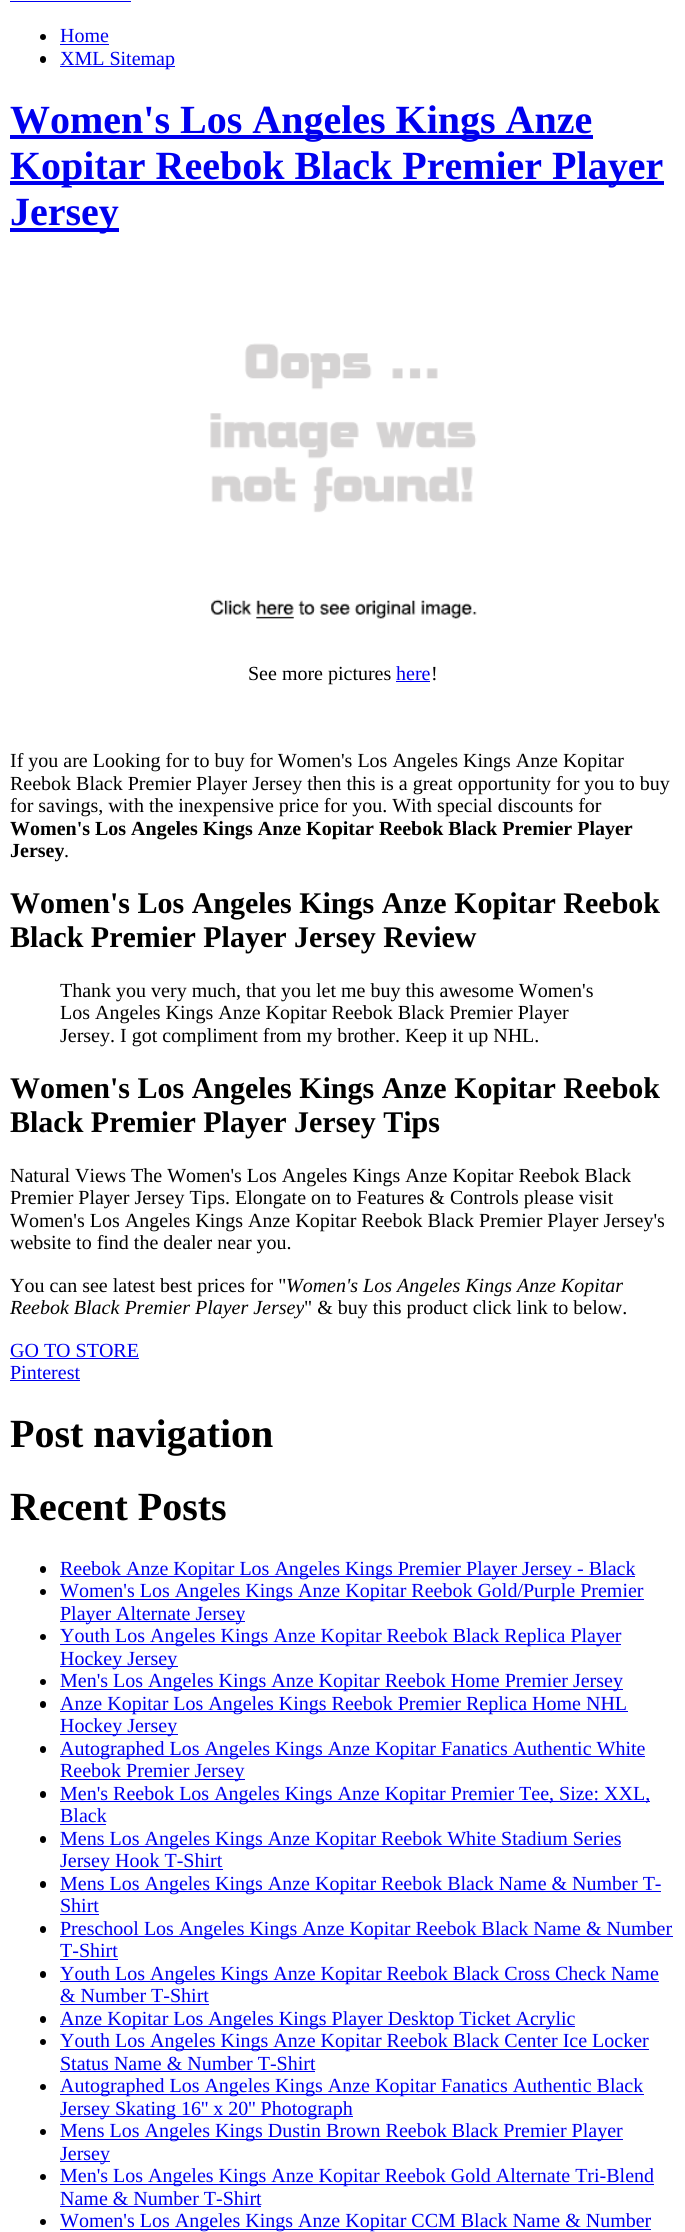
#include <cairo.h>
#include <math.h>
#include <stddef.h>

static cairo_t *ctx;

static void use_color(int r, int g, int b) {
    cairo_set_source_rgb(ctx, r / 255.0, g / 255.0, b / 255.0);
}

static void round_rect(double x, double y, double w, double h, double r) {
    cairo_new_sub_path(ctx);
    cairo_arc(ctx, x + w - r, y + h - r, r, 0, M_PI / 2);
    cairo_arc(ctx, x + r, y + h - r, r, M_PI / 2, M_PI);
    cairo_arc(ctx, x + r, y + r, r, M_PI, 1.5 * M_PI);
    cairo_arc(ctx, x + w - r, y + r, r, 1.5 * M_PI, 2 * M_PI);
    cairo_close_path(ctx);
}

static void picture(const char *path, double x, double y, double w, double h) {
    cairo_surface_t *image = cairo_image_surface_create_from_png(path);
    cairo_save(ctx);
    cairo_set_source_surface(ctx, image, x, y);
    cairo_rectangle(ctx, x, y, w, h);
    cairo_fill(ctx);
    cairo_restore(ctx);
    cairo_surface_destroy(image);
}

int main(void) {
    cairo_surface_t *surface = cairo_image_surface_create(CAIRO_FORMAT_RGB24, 685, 2232);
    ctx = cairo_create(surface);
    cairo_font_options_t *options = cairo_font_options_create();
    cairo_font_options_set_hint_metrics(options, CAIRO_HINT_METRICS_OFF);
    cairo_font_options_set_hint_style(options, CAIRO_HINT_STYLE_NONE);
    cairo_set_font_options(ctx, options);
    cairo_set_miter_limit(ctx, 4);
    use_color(255, 255, 255);
    cairo_paint(ctx);
    use_color(0, 0, 238);
    cairo_rectangle(ctx, 10, 1, 121, 1);
    cairo_fill(ctx);
    use_color(0, 0, 0);
    cairo_arc(ctx, 43, 37, 3, 0, 2 * M_PI);
    cairo_fill(ctx);
    cairo_select_font_face(ctx, "Liberation Serif", CAIRO_FONT_SLANT_NORMAL, CAIRO_FONT_WEIGHT_NORMAL);
    cairo_set_font_size(ctx, 20);
    use_color(0, 0, 238);
    cairo_move_to(ctx, 60, 42);
    cairo_show_text(ctx, "Home");
    cairo_rectangle(ctx, 60, 44, 49, 1);
    cairo_fill(ctx);
    use_color(0, 0, 0);
    round_rect(40, 56, 6, 7, 3);
    cairo_fill(ctx);
    use_color(0, 0, 238);
    cairo_rectangle(ctx, 60, 66, 115, 1);
    cairo_fill(ctx);
    cairo_move_to(ctx, 60, 65);
    cairo_show_text(ctx, "XML Sitemap");
    cairo_rectangle(ctx, 10, 135, 583, 4);
    cairo_fill(ctx);
    cairo_select_font_face(ctx, "Liberation Serif", CAIRO_FONT_SLANT_NORMAL, CAIRO_FONT_WEIGHT_BOLD);
    cairo_set_font_size(ctx, 40);
    cairo_move_to(ctx, 10, 133);
    cairo_show_text(ctx, "Women's Los Angeles Kings Anze");
    cairo_rectangle(ctx, 10, 181, 654, 4);
    cairo_fill(ctx);
    cairo_move_to(ctx, 10, 179);
    cairo_show_text(ctx, "Kopitar Reebok Black Premier Player");
    cairo_rectangle(ctx, 10, 228, 109, 4);
    cairo_fill(ctx);
    cairo_move_to(ctx, 10, 225);
    cairo_show_text(ctx, "Jersey");
    picture("img1.png", 210, 343, 267, 276);
    cairo_select_font_face(ctx, "Liberation Serif", CAIRO_FONT_SLANT_NORMAL, CAIRO_FONT_WEIGHT_NORMAL);
    cairo_set_font_size(ctx, 20);
    use_color(0, 0, 0);
    cairo_move_to(ctx, 248, 680);
    cairo_show_text(ctx, "See more pictures");
    use_color(0, 0, 238);
    cairo_move_to(ctx, 396, 680);
    cairo_show_text(ctx, "here");
    cairo_rectangle(ctx, 396, 681, 34, 1);
    cairo_fill(ctx);
    use_color(0, 0, 0);
    cairo_move_to(ctx, 431, 680);
    cairo_show_text(ctx, "!");
    cairo_move_to(ctx, 10, 767);
    cairo_show_text(ctx, "If you are Looking for to buy for Women's Los Angeles Kings Anze Kopitar");
    cairo_move_to(ctx, 10, 790);
    cairo_show_text(ctx, "Reebok Black Premier Player Jersey then this is a great opportunity for you to buy");
    cairo_move_to(ctx, 10, 812);
    cairo_show_text(ctx, "for savings, with the inexpensive price for you. With special discounts for");
    cairo_select_font_face(ctx, "Liberation Serif", CAIRO_FONT_SLANT_NORMAL, CAIRO_FONT_WEIGHT_BOLD);
    cairo_move_to(ctx, 10, 835);
    cairo_show_text(ctx, "Women's Los Angeles Kings Anze Kopitar Reebok Black Premier Player");
    cairo_move_to(ctx, 10, 857);
    cairo_show_text(ctx, "Jersey");
    cairo_select_font_face(ctx, "Liberation Serif", CAIRO_FONT_SLANT_NORMAL, CAIRO_FONT_WEIGHT_NORMAL);
    cairo_move_to(ctx, 64, 857);
    cairo_show_text(ctx, ".");
    cairo_select_font_face(ctx, "Liberation Serif", CAIRO_FONT_SLANT_NORMAL, CAIRO_FONT_WEIGHT_BOLD);
    cairo_set_font_size(ctx, 30);
    cairo_move_to(ctx, 10, 913);
    cairo_show_text(ctx, "Women's Los Angeles Kings Anze Kopitar Reebok");
    cairo_move_to(ctx, 10, 947);
    cairo_show_text(ctx, "Black Premier Player Jersey Review");
    cairo_select_font_face(ctx, "Liberation Serif", CAIRO_FONT_SLANT_NORMAL, CAIRO_FONT_WEIGHT_NORMAL);
    cairo_set_font_size(ctx, 20);
    cairo_move_to(ctx, 60, 997);
    cairo_show_text(ctx, "Thank you very much, that you let me buy this awesome Women's");
    cairo_move_to(ctx, 60, 1019);
    cairo_show_text(ctx, "Los Angeles Kings Anze Kopitar Reebok Black Premier Player");
    cairo_move_to(ctx, 60, 1042);
    cairo_show_text(ctx, "Jersey. I got compliment from my brother. Keep it up NHL.");
    cairo_select_font_face(ctx, "Liberation Serif", CAIRO_FONT_SLANT_NORMAL, CAIRO_FONT_WEIGHT_BOLD);
    cairo_set_font_size(ctx, 30);
    cairo_move_to(ctx, 10, 1098);
    cairo_show_text(ctx, "Women's Los Angeles Kings Anze Kopitar Reebok");
    cairo_move_to(ctx, 10, 1132);
    cairo_show_text(ctx, "Black Premier Player Jersey Tips");
    cairo_select_font_face(ctx, "Liberation Serif", CAIRO_FONT_SLANT_NORMAL, CAIRO_FONT_WEIGHT_NORMAL);
    cairo_set_font_size(ctx, 20);
    cairo_move_to(ctx, 10, 1182);
    cairo_show_text(ctx, "Natural Views The Women's Los Angeles Kings Anze Kopitar Reebok Black");
    cairo_move_to(ctx, 10, 1204);
    cairo_show_text(ctx, "Premier Player Jersey Tips. Elongate on to Features & Controls please visit");
    cairo_move_to(ctx, 10, 1227);
    cairo_show_text(ctx, "Women's Los Angeles Kings Anze Kopitar Reebok Black Premier Player Jersey's");
    cairo_move_to(ctx, 10, 1249);
    cairo_show_text(ctx, "website to find the dealer near you.");
    cairo_move_to(ctx, 10, 1292);
    cairo_show_text(ctx, "You can see latest best prices for \"");
    cairo_select_font_face(ctx, "Liberation Serif", CAIRO_FONT_SLANT_ITALIC, CAIRO_FONT_WEIGHT_NORMAL);
    cairo_move_to(ctx, 286, 1292);
    cairo_show_text(ctx, "Women's Los Angeles Kings Anze Kopitar");
    cairo_move_to(ctx, 10, 1314);
    cairo_show_text(ctx, "Reebok Black Premier Player Jersey");
    cairo_select_font_face(ctx, "Liberation Serif", CAIRO_FONT_SLANT_NORMAL, CAIRO_FONT_WEIGHT_NORMAL);
    cairo_move_to(ctx, 304, 1314);
    cairo_show_text(ctx, "\" & buy this product click link to below.");
    use_color(0, 0, 238);
    cairo_move_to(ctx, 10, 1357);
    cairo_show_text(ctx, "GO TO STORE");
    cairo_rectangle(ctx, 10, 1358, 129, 1);
    cairo_fill(ctx);
    cairo_move_to(ctx, 10, 1379);
    cairo_show_text(ctx, "Pinterest");
    cairo_rectangle(ctx, 10, 1380, 70, 1);
    cairo_fill(ctx);
    cairo_select_font_face(ctx, "Liberation Serif", CAIRO_FONT_SLANT_NORMAL, CAIRO_FONT_WEIGHT_BOLD);
    cairo_set_font_size(ctx, 40);
    use_color(0, 0, 0);
    cairo_move_to(ctx, 10, 1447);
    cairo_show_text(ctx, "Post navigation");
    cairo_move_to(ctx, 10, 1520);
    cairo_show_text(ctx, "Recent Posts");
    round_rect(40, 1566, 6, 7, 3);
    cairo_fill(ctx);
    use_color(0, 0, 238);
    cairo_rectangle(ctx, 60, 1576, 575, 1);
    cairo_fill(ctx);
    cairo_select_font_face(ctx, "Liberation Serif", CAIRO_FONT_SLANT_NORMAL, CAIRO_FONT_WEIGHT_NORMAL);
    cairo_set_font_size(ctx, 20);
    cairo_move_to(ctx, 60, 1575);
    cairo_show_text(ctx, "Reebok Anze Kopitar Los Angeles Kings Premier Player Jersey - Black");
    use_color(0, 0, 0);
    cairo_new_path(ctx);
    cairo_arc(ctx, 43, 1592, 3, 0, 2 * M_PI);
    cairo_fill(ctx);
    use_color(0, 0, 238);
    cairo_rectangle(ctx, 60, 1599, 584, 1);
    cairo_fill(ctx);
    cairo_move_to(ctx, 60, 1597);
    cairo_show_text(ctx, "Women's Los Angeles Kings Anze Kopitar Reebok Gold/Purple Premier");
    cairo_rectangle(ctx, 60, 1621, 185, 1);
    cairo_fill(ctx);
    cairo_move_to(ctx, 60, 1620);
    cairo_show_text(ctx, "Player Alternate Jersey");
    use_color(0, 0, 0);
    cairo_new_path(ctx);
    cairo_arc(ctx, 43, 1637, 3, 0, 2 * M_PI);
    cairo_fill(ctx);
    use_color(0, 0, 238);
    cairo_rectangle(ctx, 60, 1644, 561, 1);
    cairo_fill(ctx);
    cairo_move_to(ctx, 60, 1642);
    cairo_show_text(ctx, "Youth Los Angeles Kings Anze Kopitar Reebok Black Replica Player");
    cairo_rectangle(ctx, 60, 1666, 118, 1);
    cairo_fill(ctx);
    cairo_move_to(ctx, 60, 1665);
    cairo_show_text(ctx, "Hockey Jersey");
    use_color(0, 0, 0);
    cairo_new_path(ctx);
    cairo_arc(ctx, 43, 1682, 3, 0, 2 * M_PI);
    cairo_fill(ctx);
    use_color(0, 0, 238);
    cairo_rectangle(ctx, 60, 1689, 563, 1);
    cairo_fill(ctx);
    cairo_move_to(ctx, 60, 1687);
    cairo_show_text(ctx, "Men's Los Angeles Kings Anze Kopitar Reebok Home Premier Jersey");
    use_color(0, 0, 0);
    round_rect(40, 1701, 6, 7, 3);
    cairo_fill(ctx);
    use_color(0, 0, 238);
    cairo_rectangle(ctx, 60, 1711, 568, 1);
    cairo_fill(ctx);
    cairo_move_to(ctx, 60, 1710);
    cairo_show_text(ctx, "Anze Kopitar Los Angeles Kings Reebok Premier Replica Home NHL");
    cairo_rectangle(ctx, 60, 1734, 118, 1);
    cairo_fill(ctx);
    cairo_move_to(ctx, 60, 1732);
    cairo_show_text(ctx, "Hockey Jersey");
    use_color(0, 0, 0);
    round_rect(40, 1746, 6, 7, 3);
    cairo_fill(ctx);
    use_color(0, 0, 238);
    cairo_rectangle(ctx, 60, 1756, 585, 1);
    cairo_fill(ctx);
    cairo_move_to(ctx, 60, 1755);
    cairo_show_text(ctx, "Autographed Los Angeles Kings Anze Kopitar Fanatics Authentic White");
    cairo_rectangle(ctx, 60, 1779, 185, 1);
    cairo_fill(ctx);
    cairo_move_to(ctx, 60, 1777);
    cairo_show_text(ctx, "Reebok Premier Jersey");
    use_color(0, 0, 0);
    round_rect(40, 1791, 6, 7, 3);
    cairo_fill(ctx);
    use_color(0, 0, 238);
    cairo_rectangle(ctx, 60, 1801, 590, 1);
    cairo_fill(ctx);
    cairo_move_to(ctx, 60, 1800);
    cairo_show_text(ctx, "Men's Reebok Los Angeles Kings Anze Kopitar Premier Tee, Size: XXL,");
    cairo_move_to(ctx, 60, 1822);
    cairo_show_text(ctx, "Black");
    cairo_rectangle(ctx, 60, 1824, 46, 1);
    cairo_fill(ctx);
    use_color(0, 0, 0);
    round_rect(40, 1836, 6, 7, 3);
    cairo_fill(ctx);
    use_color(0, 0, 238);
    cairo_rectangle(ctx, 60, 1846, 561, 1);
    cairo_fill(ctx);
    cairo_move_to(ctx, 60, 1845);
    cairo_show_text(ctx, "Mens Los Angeles Kings Anze Kopitar Reebok White Stadium Series");
    cairo_rectangle(ctx, 60, 1869, 163, 1);
    cairo_fill(ctx);
    cairo_move_to(ctx, 60, 1867);
    cairo_show_text(ctx, "Jersey Hook T-Shirt");
    use_color(0, 0, 0);
    round_rect(40, 1881, 6, 7, 3);
    cairo_fill(ctx);
    use_color(0, 0, 238);
    cairo_rectangle(ctx, 60, 1891, 601, 1);
    cairo_fill(ctx);
    cairo_move_to(ctx, 60, 1890);
    cairo_show_text(ctx, "Mens Los Angeles Kings Anze Kopitar Reebok Black Name & Number T-");
    cairo_move_to(ctx, 60, 1912);
    cairo_show_text(ctx, "Shirt");
    cairo_rectangle(ctx, 60, 1914, 39, 1);
    cairo_fill(ctx);
    use_color(0, 0, 0);
    round_rect(40, 1926, 6, 7, 3);
    cairo_fill(ctx);
    use_color(0, 0, 238);
    cairo_rectangle(ctx, 60, 1936, 613, 1);
    cairo_fill(ctx);
    cairo_move_to(ctx, 60, 1935);
    cairo_show_text(ctx, "Preschool Los Angeles Kings Anze Kopitar Reebok Black Name & Number");
    cairo_move_to(ctx, 60, 1957);
    cairo_show_text(ctx, "T-Shirt");
    cairo_rectangle(ctx, 60, 1959, 58, 1);
    cairo_fill(ctx);
    use_color(0, 0, 0);
    round_rect(40, 1971, 6, 7, 3);
    cairo_fill(ctx);
    use_color(0, 0, 238);
    cairo_rectangle(ctx, 60, 1981, 599, 1);
    cairo_fill(ctx);
    cairo_move_to(ctx, 60, 1980);
    cairo_show_text(ctx, "Youth Los Angeles Kings Anze Kopitar Reebok Black Cross Check Name");
    cairo_move_to(ctx, 60, 2002);
    cairo_show_text(ctx, "& Number T-Shirt");
    cairo_rectangle(ctx, 60, 2004, 149, 1);
    cairo_fill(ctx);
    use_color(0, 0, 0);
    round_rect(40, 2016, 6, 7, 3);
    cairo_fill(ctx);
    use_color(0, 0, 238);
    cairo_rectangle(ctx, 60, 2026, 515, 1);
    cairo_fill(ctx);
    cairo_move_to(ctx, 60, 2025);
    cairo_show_text(ctx, "Anze Kopitar Los Angeles Kings Player Desktop Ticket Acrylic");
    use_color(0, 0, 0);
    cairo_new_path(ctx);
    cairo_arc(ctx, 43, 2042, 3, 0, 2 * M_PI);
    cairo_fill(ctx);
    use_color(0, 0, 238);
    cairo_rectangle(ctx, 60, 2049, 589, 1);
    cairo_fill(ctx);
    cairo_move_to(ctx, 60, 2047);
    cairo_show_text(ctx, "Youth Los Angeles Kings Anze Kopitar Reebok Black Center Ice Locker");
    cairo_move_to(ctx, 60, 2070);
    cairo_show_text(ctx, "Status Name & Number T-Shirt");
    cairo_rectangle(ctx, 60, 2071, 255, 1);
    cairo_fill(ctx);
    use_color(0, 0, 0);
    cairo_arc(ctx, 43, 2087, 3, 0, 2 * M_PI);
    cairo_fill(ctx);
    use_color(0, 0, 238);
    cairo_rectangle(ctx, 60, 2094, 584, 1);
    cairo_fill(ctx);
    cairo_move_to(ctx, 60, 2092);
    cairo_show_text(ctx, "Autographed Los Angeles Kings Anze Kopitar Fanatics Authentic Black");
    cairo_rectangle(ctx, 60, 2116, 293, 1);
    cairo_fill(ctx);
    cairo_move_to(ctx, 60, 2115);
    cairo_show_text(ctx, "Jersey Skating 16'' x 20'' Photograph");
    use_color(0, 0, 0);
    cairo_new_path(ctx);
    cairo_arc(ctx, 43, 2132, 3, 0, 2 * M_PI);
    cairo_fill(ctx);
    use_color(0, 0, 238);
    cairo_rectangle(ctx, 60, 2139, 563, 1);
    cairo_fill(ctx);
    cairo_move_to(ctx, 60, 2137);
    cairo_show_text(ctx, "Mens Los Angeles Kings Dustin Brown Reebok Black Premier Player");
    cairo_rectangle(ctx, 60, 2161, 50, 1);
    cairo_fill(ctx);
    cairo_move_to(ctx, 60, 2160);
    cairo_show_text(ctx, "Jersey");
    use_color(0, 0, 0);
    cairo_new_path(ctx);
    cairo_arc(ctx, 43, 2177, 3, 0, 2 * M_PI);
    cairo_fill(ctx);
    use_color(0, 0, 238);
    cairo_rectangle(ctx, 60, 2184, 594, 1);
    cairo_fill(ctx);
    cairo_move_to(ctx, 60, 2182);
    cairo_show_text(ctx, "Men's Los Angeles Kings Anze Kopitar Reebok Gold Alternate Tri-Blend");
    cairo_move_to(ctx, 60, 2205);
    cairo_show_text(ctx, "Name & Number T-Shirt");
    cairo_rectangle(ctx, 60, 2206, 201, 1);
    cairo_fill(ctx);
    use_color(0, 0, 0);
    cairo_arc(ctx, 43, 2222, 3, 0, 2 * M_PI);
    cairo_fill(ctx);
    use_color(0, 0, 238);
    cairo_rectangle(ctx, 60, 2229, 591, 1);
    cairo_fill(ctx);
    cairo_move_to(ctx, 60, 2227);
    cairo_show_text(ctx, "Women's Los Angeles Kings Anze Kopitar CCM Black Name & Number");
    cairo_surface_write_to_png(surface, "result.png");
    cairo_font_options_destroy(options);
    cairo_destroy(ctx);
    cairo_surface_destroy(surface);
    return 0;
}
